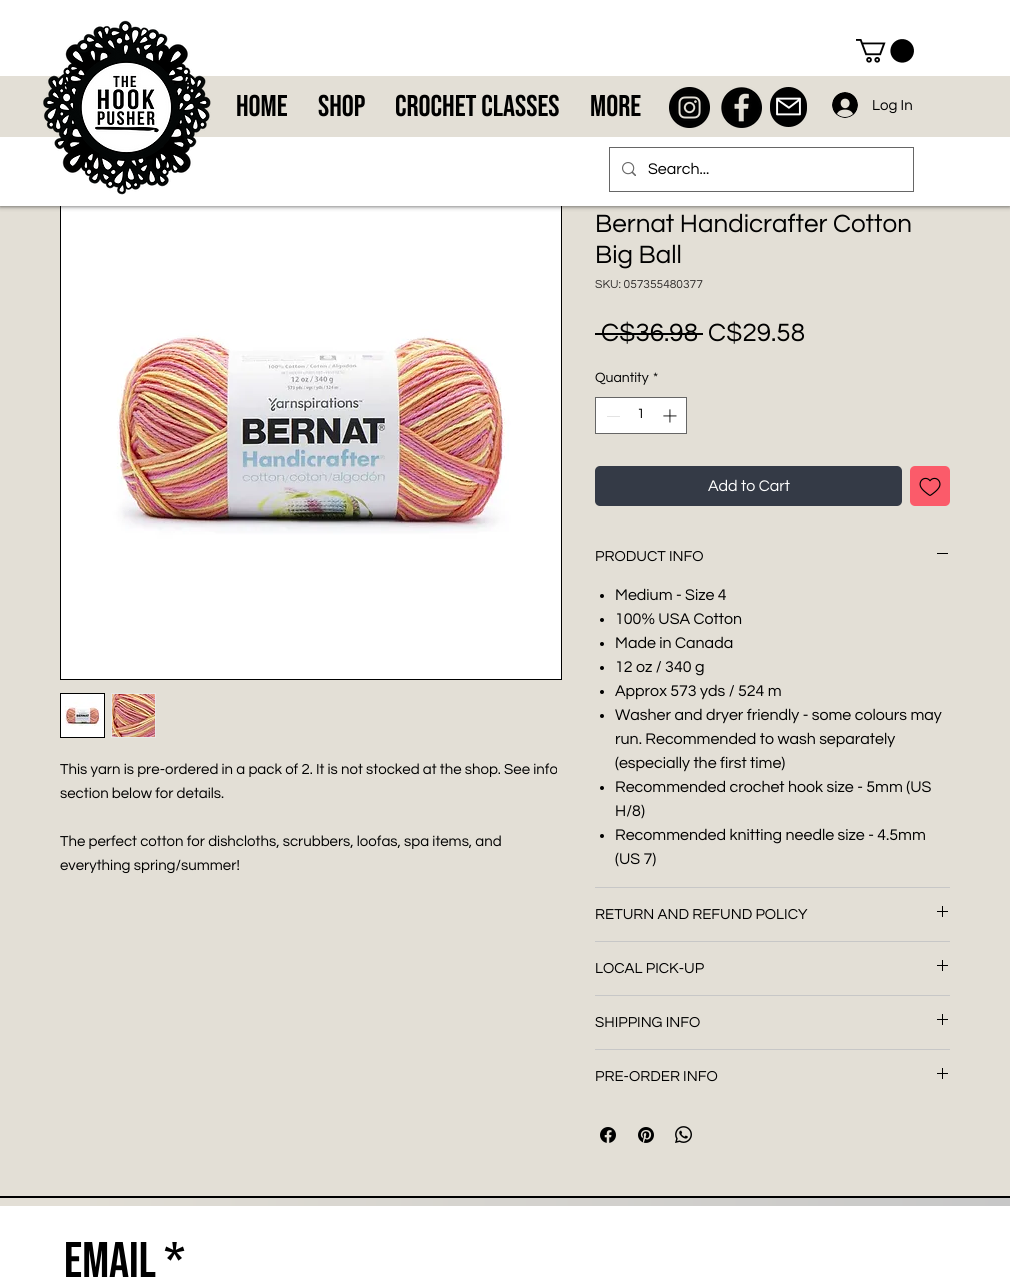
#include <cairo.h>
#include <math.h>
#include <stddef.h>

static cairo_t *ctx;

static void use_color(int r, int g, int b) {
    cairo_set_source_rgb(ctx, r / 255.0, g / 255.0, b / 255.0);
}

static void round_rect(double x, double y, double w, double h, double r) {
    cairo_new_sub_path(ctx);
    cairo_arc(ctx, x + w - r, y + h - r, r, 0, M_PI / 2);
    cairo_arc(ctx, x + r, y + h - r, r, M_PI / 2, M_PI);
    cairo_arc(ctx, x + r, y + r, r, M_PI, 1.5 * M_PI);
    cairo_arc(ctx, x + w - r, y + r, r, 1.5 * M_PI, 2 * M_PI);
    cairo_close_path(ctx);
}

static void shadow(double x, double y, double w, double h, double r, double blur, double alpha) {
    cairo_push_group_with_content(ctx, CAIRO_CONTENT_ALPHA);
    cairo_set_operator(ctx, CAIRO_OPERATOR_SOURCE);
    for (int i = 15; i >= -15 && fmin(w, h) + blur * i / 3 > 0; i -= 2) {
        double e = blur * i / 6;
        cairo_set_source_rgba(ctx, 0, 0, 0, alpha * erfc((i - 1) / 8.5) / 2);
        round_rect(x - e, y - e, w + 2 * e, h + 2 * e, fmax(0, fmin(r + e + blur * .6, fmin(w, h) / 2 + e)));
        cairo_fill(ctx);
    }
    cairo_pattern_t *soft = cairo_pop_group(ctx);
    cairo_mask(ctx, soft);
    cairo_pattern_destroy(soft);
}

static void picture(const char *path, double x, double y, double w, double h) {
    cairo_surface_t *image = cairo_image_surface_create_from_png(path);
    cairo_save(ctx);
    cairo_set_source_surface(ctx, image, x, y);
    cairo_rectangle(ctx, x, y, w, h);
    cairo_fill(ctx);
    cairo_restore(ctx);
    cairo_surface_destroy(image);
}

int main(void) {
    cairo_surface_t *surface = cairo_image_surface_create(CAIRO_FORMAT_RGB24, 1010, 1282);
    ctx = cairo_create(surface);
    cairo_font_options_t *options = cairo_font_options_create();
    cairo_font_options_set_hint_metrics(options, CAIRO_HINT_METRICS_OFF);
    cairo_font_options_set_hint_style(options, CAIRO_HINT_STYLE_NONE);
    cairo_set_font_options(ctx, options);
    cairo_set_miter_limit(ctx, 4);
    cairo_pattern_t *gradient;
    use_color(227, 223, 214);
    cairo_paint(ctx);
    cairo_rectangle(ctx, 60.5, 178.5, 501, 501);
    use_color(0, 0, 0);
    cairo_set_line_width(ctx, 1);
    cairo_stroke(ctx);
    picture("img8.png", 61, 206, 500, 473);
    use_color(0, 0, 0);
    shadow(0, 0, 1010, 206, 0, 2.5, 0.7);
    use_color(255, 255, 255);
    cairo_rectangle(ctx, 0, 0, 1010, 206);
    cairo_fill(ctx);
    use_color(227, 223, 214);
    cairo_rectangle(ctx, 0, 76, 1010, 61);
    cairo_fill(ctx);
    picture("img1.png", 43, 20, 168, 175);
    picture("img2.png", 856, 39, 58, 24);
    cairo_select_font_face(ctx, "Bebas Neue", CAIRO_FONT_SLANT_NORMAL, CAIRO_FONT_WEIGHT_NORMAL);
    cairo_set_font_size(ctx, 30);
    use_color(0, 0, 0);
    cairo_move_to(ctx, 236, 116);
    cairo_show_text(ctx, "Home");
    cairo_move_to(ctx, 318, 116);
    cairo_show_text(ctx, "Shop");
    cairo_move_to(ctx, 395, 116);
    cairo_show_text(ctx, "Crochet Classes");
    cairo_move_to(ctx, 590, 116);
    cairo_show_text(ctx, "More");
    picture("img3.png", 669, 87, 41, 41);
    picture("img4.png", 721, 87, 41, 41);
    round_rect(770, 87, 37, 40, 18.5);
    cairo_fill(ctx);
    picture("img5.png", 776, 97, 25, 19);
    picture("img6.png", 832, 92, 26, 26);
    cairo_select_font_face(ctx, "Questrial", CAIRO_FONT_SLANT_NORMAL, CAIRO_FONT_WEIGHT_NORMAL);
    cairo_set_font_size(ctx, 15);
    cairo_move_to(ctx, 872, 110);
    cairo_show_text(ctx, "Log In");
    cairo_rectangle(ctx, 609.5, 147.5, 304, 44);
    use_color(102, 102, 102);
    cairo_stroke(ctx);
    picture("img7.png", 622, 162, 14, 14);
    cairo_set_font_size(ctx, 16);
    use_color(0, 0, 0);
    cairo_move_to(ctx, 648, 174);
    cairo_show_text(ctx, "Search...");
    cairo_rectangle(ctx, 60.5, 693.5, 44, 44);
    cairo_stroke(ctx);
    picture("img9.png", 61, 694, 43, 43);
    use_color(232, 230, 230);
    cairo_rectangle(ctx, 111, 693, 45, 45);
    cairo_fill(ctx);
    picture("img10.png", 112, 694, 43, 43);
    cairo_set_font_size(ctx, 15);
    use_color(0, 0, 0);
    cairo_move_to(ctx, 60, 774);
    cairo_show_text(ctx, "This yarn is pre-ordered in a pack of 2. It is not stocked at the shop. See info");
    cairo_move_to(ctx, 60, 798);
    cairo_show_text(ctx, "section below for details.");
    cairo_move_to(ctx, 60, 846);
    cairo_show_text(ctx, "The perfect cotton for dishcloths, scrubbers, loofas, spa items, and");
    cairo_move_to(ctx, 60, 870);
    cairo_show_text(ctx, "everything spring/summer!");
    cairo_set_font_size(ctx, 26);
    cairo_move_to(ctx, 595, 232);
    cairo_show_text(ctx, "Bernat Handicrafter Cotton");
    cairo_move_to(ctx, 595, 263);
    cairo_show_text(ctx, "Big Ball");
    cairo_set_font_size(ctx, 12);
    use_color(49, 46, 45);
    cairo_move_to(ctx, 595, 288);
    cairo_show_text(ctx, "SKU: 057355480377");
    cairo_set_font_size(ctx, 26);
    use_color(0, 0, 0);
    cairo_move_to(ctx, 601, 341);
    cairo_show_text(ctx, "C$36.98");
    cairo_rectangle(ctx, 595, 333, 108, 2);
    cairo_fill(ctx);
    cairo_move_to(ctx, 708, 341);
    cairo_show_text(ctx, "C$29.58");
    cairo_set_font_size(ctx, 14);
    cairo_move_to(ctx, 595, 382);
    cairo_show_text(ctx, "Quantity");
    cairo_move_to(ctx, 653, 382);
    cairo_show_text(ctx, "*");
    use_color(255, 255, 255);
    cairo_rectangle(ctx, 595.5, 397.5, 91, 36);
    cairo_fill_preserve(ctx);
    use_color(102, 102, 102);
    cairo_stroke(ctx);
    use_color(227, 227, 227);
    cairo_rectangle(ctx, 607, 416, 13, 1);
    cairo_fill(ctx);
    use_color(0, 0, 0);
    cairo_move_to(ctx, 637, 418);
    cairo_show_text(ctx, "1");
    picture("img11.png", 663, 409, 14, 14);
    use_color(52, 58, 70);
    round_rect(595, 466, 307, 40, 5);
    cairo_fill(ctx);
    cairo_set_font_size(ctx, 16);
    use_color(255, 255, 255);
    cairo_move_to(ctx, 708, 491);
    cairo_show_text(ctx, "Add to Cart");
    use_color(251, 91, 106);
    round_rect(910, 466, 40, 40, 5);
    cairo_fill(ctx);
    picture("img12.png", 919, 477, 22, 19);
    use_color(199, 199, 199);
    cairo_rectangle(ctx, 595, 887, 355, 1);
    cairo_fill(ctx);
    cairo_set_font_size(ctx, 15);
    use_color(0, 0, 0);
    cairo_move_to(ctx, 595, 561);
    cairo_show_text(ctx, "PRODUCT INFO");
    cairo_rectangle(ctx, 937, 553, 11, 1);
    cairo_fill(ctx);
    cairo_arc(ctx, 602, 596, 2, 0, 2 * M_PI);
    cairo_fill(ctx);
    cairo_set_font_size(ctx, 16);
    cairo_move_to(ctx, 615, 600);
    cairo_show_text(ctx, "Medium - Size 4");
    cairo_new_path(ctx);
    cairo_arc(ctx, 602, 620, 2, 0, 2 * M_PI);
    cairo_fill(ctx);
    cairo_move_to(ctx, 615, 624);
    cairo_show_text(ctx, "100% USA Cotton");
    cairo_new_path(ctx);
    cairo_arc(ctx, 602, 644, 2, 0, 2 * M_PI);
    cairo_fill(ctx);
    cairo_move_to(ctx, 615, 648);
    cairo_show_text(ctx, "Made in Canada");
    cairo_new_path(ctx);
    cairo_arc(ctx, 602, 668, 2, 0, 2 * M_PI);
    cairo_fill(ctx);
    cairo_move_to(ctx, 615, 672);
    cairo_show_text(ctx, "12 oz / 340 g");
    cairo_new_path(ctx);
    cairo_arc(ctx, 602, 692, 2, 0, 2 * M_PI);
    cairo_fill(ctx);
    cairo_move_to(ctx, 615, 696);
    cairo_show_text(ctx, "Approx 573 yds / 524 m");
    cairo_new_path(ctx);
    cairo_arc(ctx, 602, 716, 2, 0, 2 * M_PI);
    cairo_fill(ctx);
    cairo_move_to(ctx, 615, 720);
    cairo_show_text(ctx, "Washer and dryer friendly - some colours may");
    cairo_move_to(ctx, 615, 744);
    cairo_show_text(ctx, "run. Recommended to wash separately");
    cairo_move_to(ctx, 615, 768);
    cairo_show_text(ctx, "(especially the first time)");
    cairo_new_path(ctx);
    cairo_arc(ctx, 602, 788, 2, 0, 2 * M_PI);
    cairo_fill(ctx);
    cairo_move_to(ctx, 615, 792);
    cairo_show_text(ctx, "Recommended crochet hook size - 5mm (US");
    cairo_move_to(ctx, 615, 816);
    cairo_show_text(ctx, "H/8)");
    cairo_new_path(ctx);
    cairo_arc(ctx, 602, 836, 2, 0, 2 * M_PI);
    cairo_fill(ctx);
    cairo_move_to(ctx, 615, 840);
    cairo_show_text(ctx, "Recommended knitting needle size - 4.5mm");
    cairo_move_to(ctx, 615, 864);
    cairo_show_text(ctx, "(US 7)");
    use_color(199, 199, 199);
    cairo_rectangle(ctx, 595, 941, 355, 1);
    cairo_fill(ctx);
    cairo_set_font_size(ctx, 15);
    use_color(0, 0, 0);
    cairo_move_to(ctx, 595, 919);
    cairo_show_text(ctx, "RETURN AND REFUND POLICY");
    picture("img13.png", 937, 906, 11, 11);
    use_color(199, 199, 199);
    cairo_rectangle(ctx, 595, 995, 355, 1);
    cairo_fill(ctx);
    use_color(0, 0, 0);
    cairo_move_to(ctx, 595, 973);
    cairo_show_text(ctx, "LOCAL PICK-UP");
    picture("img13.png", 937, 960, 11, 11);
    use_color(199, 199, 199);
    cairo_rectangle(ctx, 595, 1049, 355, 1);
    cairo_fill(ctx);
    use_color(0, 0, 0);
    cairo_move_to(ctx, 595, 1027);
    cairo_show_text(ctx, "SHIPPING INFO");
    picture("img13.png", 937, 1014, 11, 11);
    cairo_move_to(ctx, 595, 1081);
    cairo_show_text(ctx, "PRE-ORDER INFO");
    picture("img13.png", 937, 1068, 11, 11);
    picture("img14.png", 600, 1127, 16, 16);
    picture("img15.png", 638, 1127, 16, 16);
    picture("img16.png", 675, 1126, 17, 17);
    cairo_rectangle(ctx, 0, 1196, 1010, 2);
    cairo_fill(ctx);
    gradient = cairo_pattern_create_linear(0, 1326, 1010, 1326);
    cairo_pattern_add_color_stop_rgba(gradient, 0, 0.89, 0.875, 0.839, 1);
    cairo_pattern_add_color_stop_rgba(gradient, 1, 0.78, 0.78, 0.78, 1);
    cairo_set_source(ctx, gradient);
    cairo_pattern_destroy(gradient);
    cairo_rectangle(ctx, 90, 1198, 920, 8);
    cairo_fill(ctx);
    use_color(255, 255, 255);
    cairo_rectangle(ctx, 0, 1206, 1010, 76);
    cairo_fill(ctx);
    cairo_select_font_face(ctx, "Bebas Neue", CAIRO_FONT_SLANT_NORMAL, CAIRO_FONT_WEIGHT_NORMAL);
    cairo_set_font_size(ctx, 50);
    use_color(0, 0, 0);
    cairo_move_to(ctx, 64, 1277);
    cairo_show_text(ctx, "Email *");
    cairo_surface_write_to_png(surface, "result.png");
    cairo_font_options_destroy(options);
    cairo_destroy(ctx);
    cairo_surface_destroy(surface);
    return 0;
}
